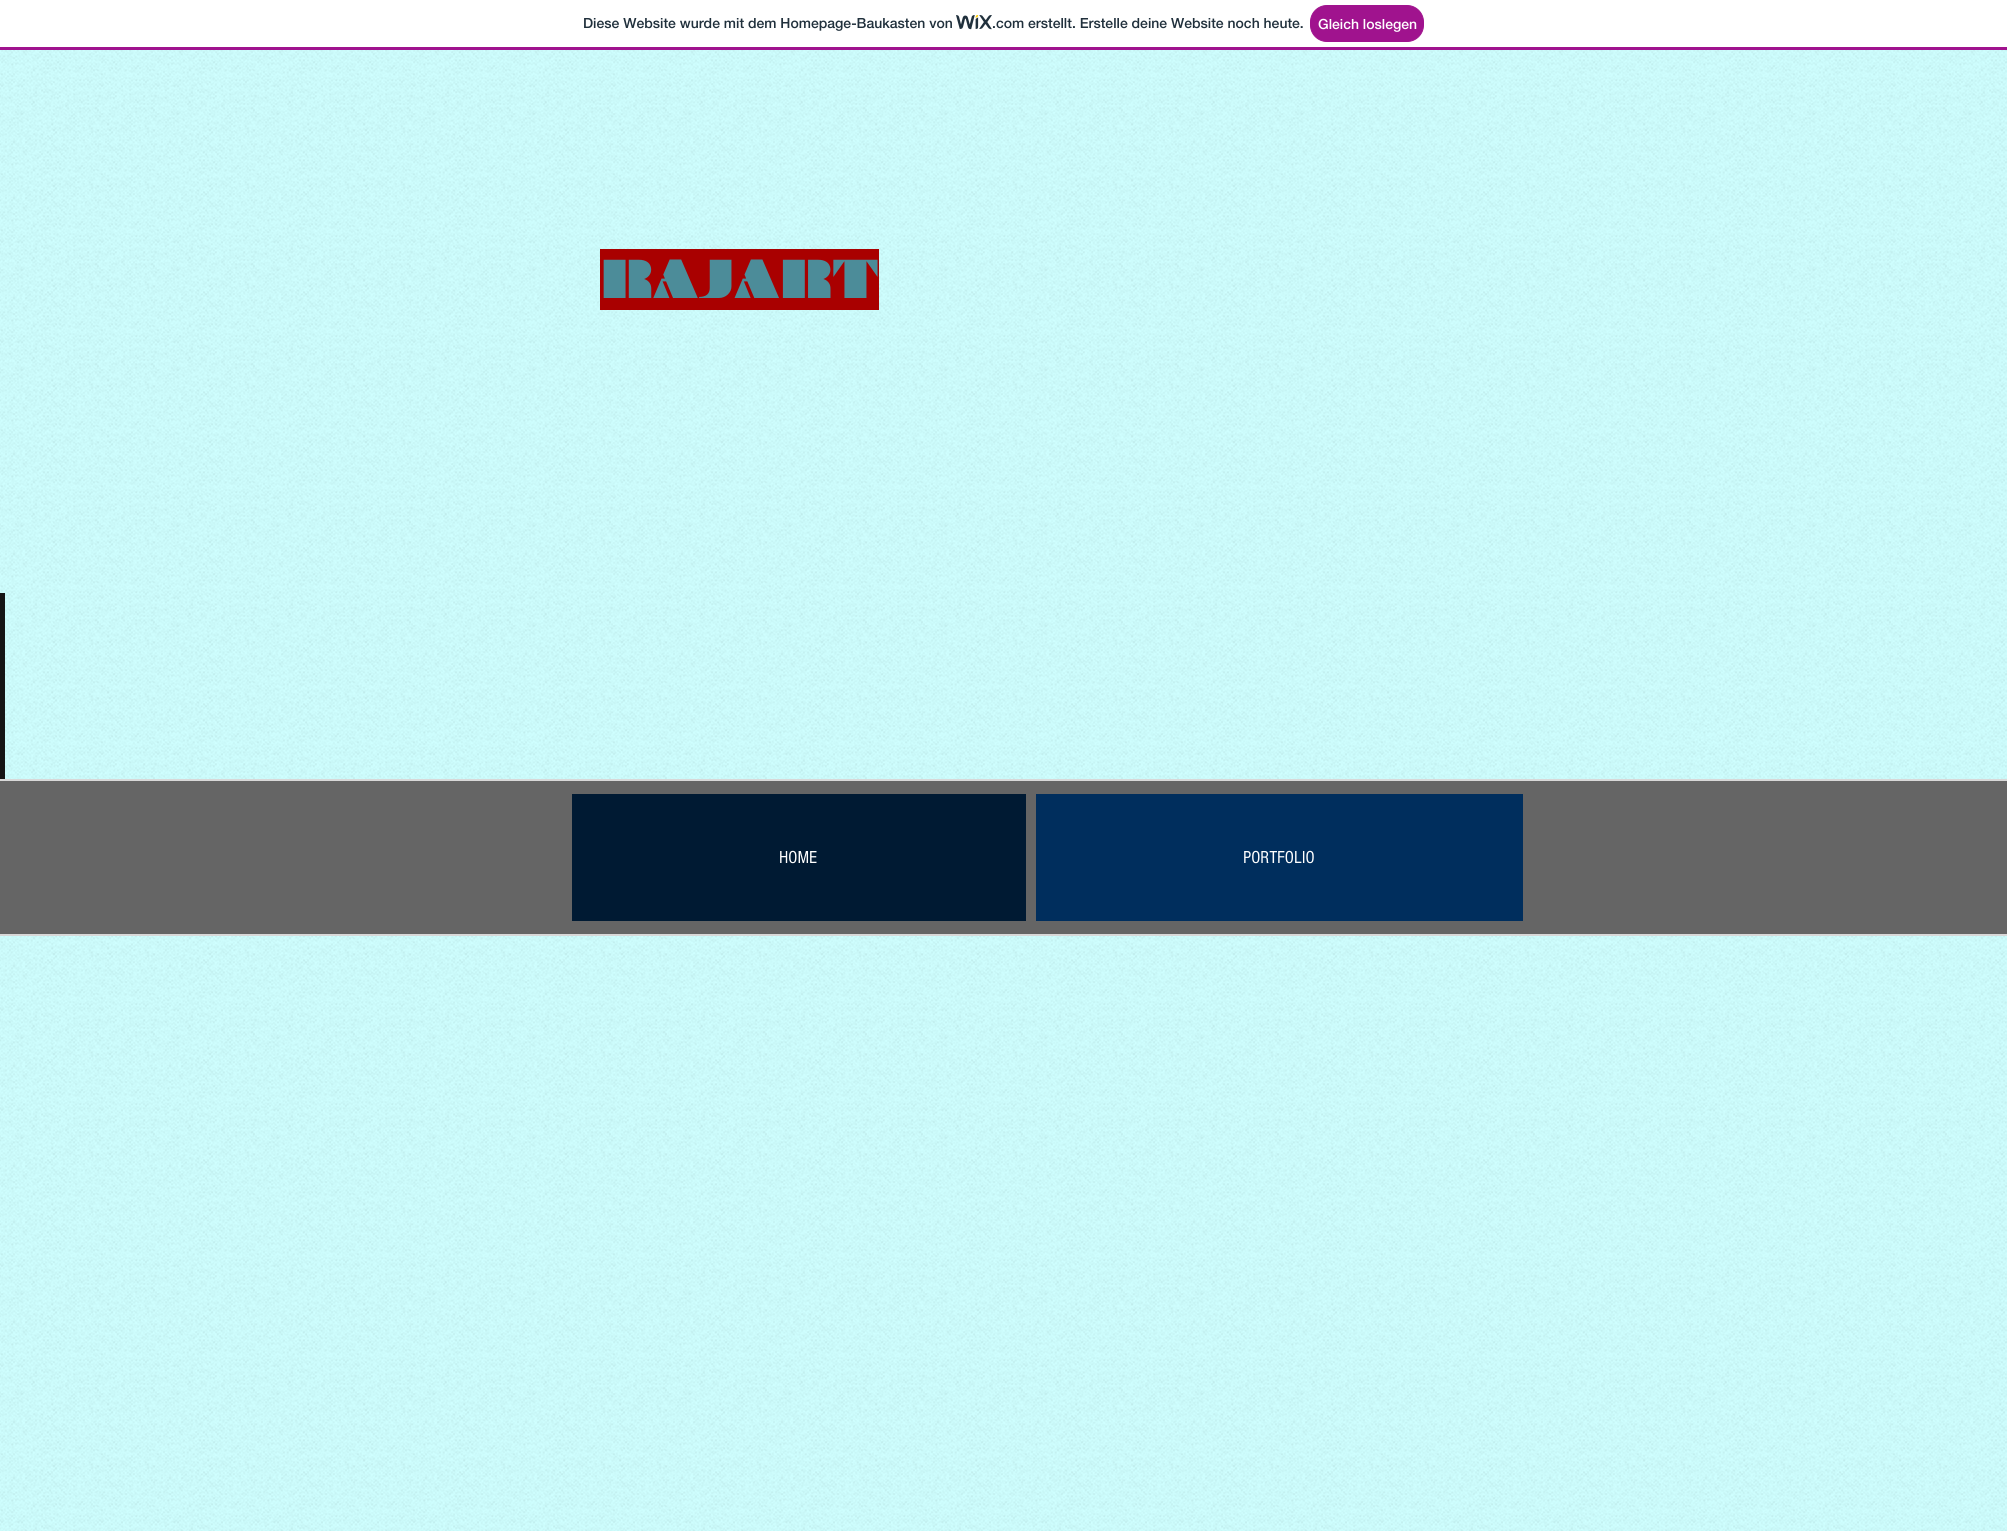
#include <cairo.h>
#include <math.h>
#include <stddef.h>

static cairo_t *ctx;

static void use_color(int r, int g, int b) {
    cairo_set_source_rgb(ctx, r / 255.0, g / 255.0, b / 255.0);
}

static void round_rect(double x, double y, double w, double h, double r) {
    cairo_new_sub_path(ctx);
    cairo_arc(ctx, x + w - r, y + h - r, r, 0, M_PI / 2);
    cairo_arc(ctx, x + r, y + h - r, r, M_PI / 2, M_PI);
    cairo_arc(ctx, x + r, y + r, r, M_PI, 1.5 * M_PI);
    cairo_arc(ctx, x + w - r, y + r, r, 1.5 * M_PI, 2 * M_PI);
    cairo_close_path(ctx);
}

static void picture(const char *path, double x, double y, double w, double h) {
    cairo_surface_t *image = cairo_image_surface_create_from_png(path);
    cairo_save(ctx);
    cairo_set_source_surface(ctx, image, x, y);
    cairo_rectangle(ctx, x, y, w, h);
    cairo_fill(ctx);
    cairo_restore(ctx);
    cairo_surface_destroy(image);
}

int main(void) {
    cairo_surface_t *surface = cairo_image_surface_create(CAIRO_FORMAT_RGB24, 2007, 1531);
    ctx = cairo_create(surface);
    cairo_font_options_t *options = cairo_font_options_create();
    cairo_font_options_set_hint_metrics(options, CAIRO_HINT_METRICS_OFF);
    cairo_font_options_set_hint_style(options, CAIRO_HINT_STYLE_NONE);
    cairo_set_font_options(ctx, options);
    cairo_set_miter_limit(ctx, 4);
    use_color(255, 255, 255);
    cairo_paint(ctx);
    use_color(160, 19, 142);
    cairo_rectangle(ctx, 0, 47, 2007, 3);
    cairo_fill(ctx);
    cairo_select_font_face(ctx, "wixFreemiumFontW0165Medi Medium", CAIRO_FONT_SLANT_NORMAL, CAIRO_FONT_WEIGHT_NORMAL);
    cairo_set_font_size(ctx, 14);
    use_color(32, 48, 60);
    cairo_move_to(ctx, 583, 28);
    cairo_show_text(ctx, "Diese Website wurde mit dem Homepage-Baukasten von");
    picture("img1.png", 956, 15, 36, 15);
    cairo_move_to(ctx, 992, 28);
    cairo_show_text(ctx, ".com erstellt. Erstelle deine Website noch heute.");
    use_color(160, 19, 142);
    round_rect(1310.5, 5.5, 113, 36, 16.5);
    cairo_fill_preserve(ctx);
    cairo_set_line_width(ctx, 1);
    cairo_stroke(ctx);
    use_color(255, 255, 255);
    cairo_move_to(ctx, 1318, 29);
    cairo_show_text(ctx, "Gleich loslegen");
    use_color(207, 255, 255);
    cairo_rectangle(ctx, 0, 50, 2007, 1481);
    cairo_fill(ctx);
    picture("img2.png", 0, 50, 2007, 1481);
    use_color(169, 0, 0);
    cairo_rectangle(ctx, 600, 249, 279, 61);
    cairo_fill(ctx);
    cairo_select_font_face(ctx, "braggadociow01", CAIRO_FONT_SLANT_NORMAL, CAIRO_FONT_WEIGHT_NORMAL);
    cairo_set_font_size(ctx, 50);
    use_color(76, 140, 153);
    cairo_move_to(ctx, 600, 298);
    cairo_show_text(ctx, "RAJART");
    use_color(21, 21, 21);
    cairo_rectangle(ctx, 0, 593, 5, 186);
    cairo_fill(ctx);
    use_color(101, 101, 101);
    cairo_rectangle(ctx, 0, 781, 2007, 153);
    cairo_fill(ctx);
    use_color(216, 216, 216);
    cairo_rectangle(ctx, 0, 779, 2007, 2);
    cairo_fill(ctx);
    cairo_rectangle(ctx, 0, 934, 2007, 2);
    cairo_fill(ctx);
    use_color(0, 26, 51);
    cairo_rectangle(ctx, 572, 794, 454, 127);
    cairo_fill(ctx);
    cairo_select_font_face(ctx, "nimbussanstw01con", CAIRO_FONT_SLANT_NORMAL, CAIRO_FONT_WEIGHT_NORMAL);
    cairo_set_font_size(ctx, 18);
    use_color(255, 255, 255);
    cairo_move_to(ctx, 779, 863);
    cairo_show_text(ctx, "HOME");
    use_color(0, 46, 93);
    cairo_rectangle(ctx, 1036, 794, 487, 127);
    cairo_fill(ctx);
    use_color(255, 255, 255);
    cairo_move_to(ctx, 1243, 863);
    cairo_show_text(ctx, "PORTFOLIO");
    cairo_surface_write_to_png(surface, "result.png");
    cairo_font_options_destroy(options);
    cairo_destroy(ctx);
    cairo_surface_destroy(surface);
    return 0;
}
